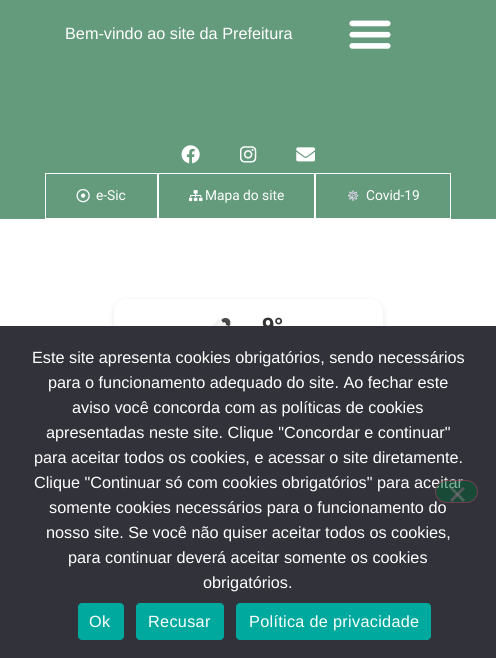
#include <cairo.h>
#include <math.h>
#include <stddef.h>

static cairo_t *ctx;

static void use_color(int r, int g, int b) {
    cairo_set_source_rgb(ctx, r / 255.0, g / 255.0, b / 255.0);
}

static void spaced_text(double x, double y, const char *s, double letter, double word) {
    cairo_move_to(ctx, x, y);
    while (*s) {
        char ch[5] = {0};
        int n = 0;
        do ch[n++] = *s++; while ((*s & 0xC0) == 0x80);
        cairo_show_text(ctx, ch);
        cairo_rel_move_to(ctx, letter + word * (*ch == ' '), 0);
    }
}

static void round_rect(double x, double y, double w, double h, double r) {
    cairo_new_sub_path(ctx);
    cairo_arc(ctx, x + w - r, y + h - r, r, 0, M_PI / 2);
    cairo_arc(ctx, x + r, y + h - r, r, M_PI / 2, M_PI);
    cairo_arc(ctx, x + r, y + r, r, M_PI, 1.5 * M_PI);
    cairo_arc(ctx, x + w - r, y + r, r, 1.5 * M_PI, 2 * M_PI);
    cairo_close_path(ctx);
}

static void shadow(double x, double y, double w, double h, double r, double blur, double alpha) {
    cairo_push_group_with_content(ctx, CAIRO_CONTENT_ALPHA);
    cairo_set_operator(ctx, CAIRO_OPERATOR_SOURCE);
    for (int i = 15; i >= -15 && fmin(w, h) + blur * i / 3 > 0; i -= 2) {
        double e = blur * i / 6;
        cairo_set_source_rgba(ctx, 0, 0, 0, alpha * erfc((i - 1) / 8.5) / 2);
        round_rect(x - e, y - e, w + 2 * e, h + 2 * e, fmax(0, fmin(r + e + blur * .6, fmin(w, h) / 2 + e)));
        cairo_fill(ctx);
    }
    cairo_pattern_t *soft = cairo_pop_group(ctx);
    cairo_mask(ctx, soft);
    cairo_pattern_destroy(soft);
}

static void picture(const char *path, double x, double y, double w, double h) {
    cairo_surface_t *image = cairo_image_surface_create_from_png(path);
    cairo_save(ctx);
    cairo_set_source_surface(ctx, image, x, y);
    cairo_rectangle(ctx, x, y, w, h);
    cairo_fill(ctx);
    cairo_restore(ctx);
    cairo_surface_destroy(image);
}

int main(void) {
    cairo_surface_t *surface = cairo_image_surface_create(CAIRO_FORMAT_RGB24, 496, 658);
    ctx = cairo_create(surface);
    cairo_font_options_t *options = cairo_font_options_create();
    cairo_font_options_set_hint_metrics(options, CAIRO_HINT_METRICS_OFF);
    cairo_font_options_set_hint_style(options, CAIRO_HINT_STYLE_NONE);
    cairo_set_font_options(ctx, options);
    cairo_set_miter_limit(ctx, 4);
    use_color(255, 255, 255);
    cairo_paint(ctx);
    use_color(100, 155, 125);
    cairo_rectangle(ctx, 0, 0, 496, 219);
    cairo_fill(ctx);
    cairo_select_font_face(ctx, "Liberation Sans", CAIRO_FONT_SLANT_NORMAL, CAIRO_FONT_WEIGHT_NORMAL);
    cairo_set_font_size(ctx, 16.25);
    use_color(255, 255, 255);
    cairo_move_to(ctx, 65, 39);
    cairo_show_text(ctx, "Bem-vindo ao site da Prefeitura");
    picture("img1.png", 349, 20, 42, 29);
    picture("img2.png", 181, 145, 19, 19);
    picture("img3.png", 240, 146, 17, 17);
    picture("img4.png", 296, 147, 19, 15);
    cairo_rectangle(ctx, 45.5, 173.5, 112, 45);
    cairo_set_line_width(ctx, 1);
    cairo_stroke(ctx);
    picture("img5.png", 76, 189, 14, 14);
    cairo_select_font_face(ctx, "Roboto", CAIRO_FONT_SLANT_NORMAL, CAIRO_FONT_WEIGHT_NORMAL);
    cairo_set_font_size(ctx, 13.75);
    cairo_move_to(ctx, 96, 200);
    cairo_show_text(ctx, "e-Sic");
    cairo_rectangle(ctx, 158.5, 173.5, 156, 45);
    cairo_stroke(ctx);
    picture("img6.png", 189, 190, 14, 12);
    cairo_move_to(ctx, 205, 200);
    cairo_show_text(ctx, "Mapa do site");
    cairo_rectangle(ctx, 315.5, 173.5, 135, 45);
    cairo_stroke(ctx);
    picture("img7.png", 348, 190, 11, 11);
    cairo_move_to(ctx, 366, 200);
    cairo_show_text(ctx, "Covid-19");
    use_color(0, 0, 0);
    shadow(114, 301, 269, 55, 13, 3, 0.1);
    use_color(255, 255, 255);
    round_rect(114, 299, 269, 55, 13);
    cairo_fill(ctx);
    picture("img8.png", 212, 318, 19, 8);
    cairo_select_font_face(ctx, "Liberation Sans", CAIRO_FONT_SLANT_NORMAL, CAIRO_FONT_WEIGHT_BOLD);
    cairo_set_font_size(ctx, 22);
    use_color(51, 51, 51);
    cairo_move_to(ctx, 262, 333);
    cairo_show_text(ctx, "9°");
    use_color(50, 50, 58);
    cairo_rectangle(ctx, 0, 326, 496, 332);
    cairo_fill(ctx);
    cairo_select_font_face(ctx, "Liberation Sans", CAIRO_FONT_SLANT_NORMAL, CAIRO_FONT_WEIGHT_NORMAL);
    cairo_set_font_size(ctx, 16.25);
    use_color(255, 255, 255);
    cairo_move_to(ctx, 32, 363);
    cairo_show_text(ctx, "Este site apresenta cookies obrigatórios, sendo necessários");
    cairo_move_to(ctx, 48, 388);
    cairo_show_text(ctx, "para o funcionamento adequado do site. Ao fechar este");
    cairo_move_to(ctx, 72, 413);
    cairo_show_text(ctx, "aviso você concorda com as políticas de cookies");
    cairo_move_to(ctx, 46, 438);
    cairo_show_text(ctx, "apresentadas neste site. Clique \"Concordar e continuar\"");
    cairo_move_to(ctx, 34, 463);
    cairo_show_text(ctx, "para aceitar todos os cookies, e acessar o site diretamente.");
    cairo_move_to(ctx, 34, 488);
    cairo_show_text(ctx, "Clique \"Continuar só com cookies obrigatórios\" para aceitar");
    cairo_move_to(ctx, 49, 513);
    cairo_show_text(ctx, "somente cookies necessários para o funcionamento do");
    cairo_move_to(ctx, 46, 538);
    cairo_show_text(ctx, "nosso site. Se você não quiser aceitar todos os cookies,");
    cairo_move_to(ctx, 68, 563);
    cairo_show_text(ctx, "para continuar deverá aceitar somente os cookies");
    cairo_move_to(ctx, 203, 588);
    cairo_show_text(ctx, "obrigatórios.");
    cairo_set_source_rgba(ctx, 0, 0.388, 0.212, 0.5);
    round_rect(435, 480, 43, 23, 11.5);
    cairo_fill(ctx);
    round_rect(435.5, 480.5, 42, 22, 11);
    cairo_set_source_rgba(ctx, 0.8, 0.2, 0.4, 0.5);
    cairo_stroke(ctx);
    use_color(89, 89, 93);
    cairo_new_path(ctx);
    cairo_move_to(ctx, 463, 487);
    cairo_line_to(ctx, 465, 488.5);
    cairo_line_to(ctx, 452, 502);
    cairo_line_to(ctx, 450, 500);
    cairo_close_path(ctx);
    cairo_fill(ctx);
    cairo_set_source_rgba(ctx, 0.502, 0.502, 0.502, 0.5);
    cairo_new_path(ctx);
    cairo_move_to(ctx, 450, 488.5);
    cairo_line_to(ctx, 452, 487);
    cairo_line_to(ctx, 465, 500);
    cairo_line_to(ctx, 463, 502);
    cairo_close_path(ctx);
    cairo_fill(ctx);
    use_color(0, 169, 157);
    round_rect(78, 603, 46, 37, 4);
    cairo_fill(ctx);
    use_color(255, 255, 255);
    spaced_text(89, 627, "Ok", 0.3, 0);
    use_color(0, 169, 157);
    round_rect(136, 603, 88, 37, 4);
    cairo_fill(ctx);
    use_color(255, 255, 255);
    spaced_text(148, 627, "Recusar", 0.3, 0);
    use_color(0, 169, 157);
    round_rect(236, 603, 195, 37, 4);
    cairo_fill(ctx);
    use_color(255, 255, 255);
    spaced_text(249, 627, "Política de privacidade", 0.3, 0);
    cairo_surface_write_to_png(surface, "result.png");
    cairo_font_options_destroy(options);
    cairo_destroy(ctx);
    cairo_surface_destroy(surface);
    return 0;
}
